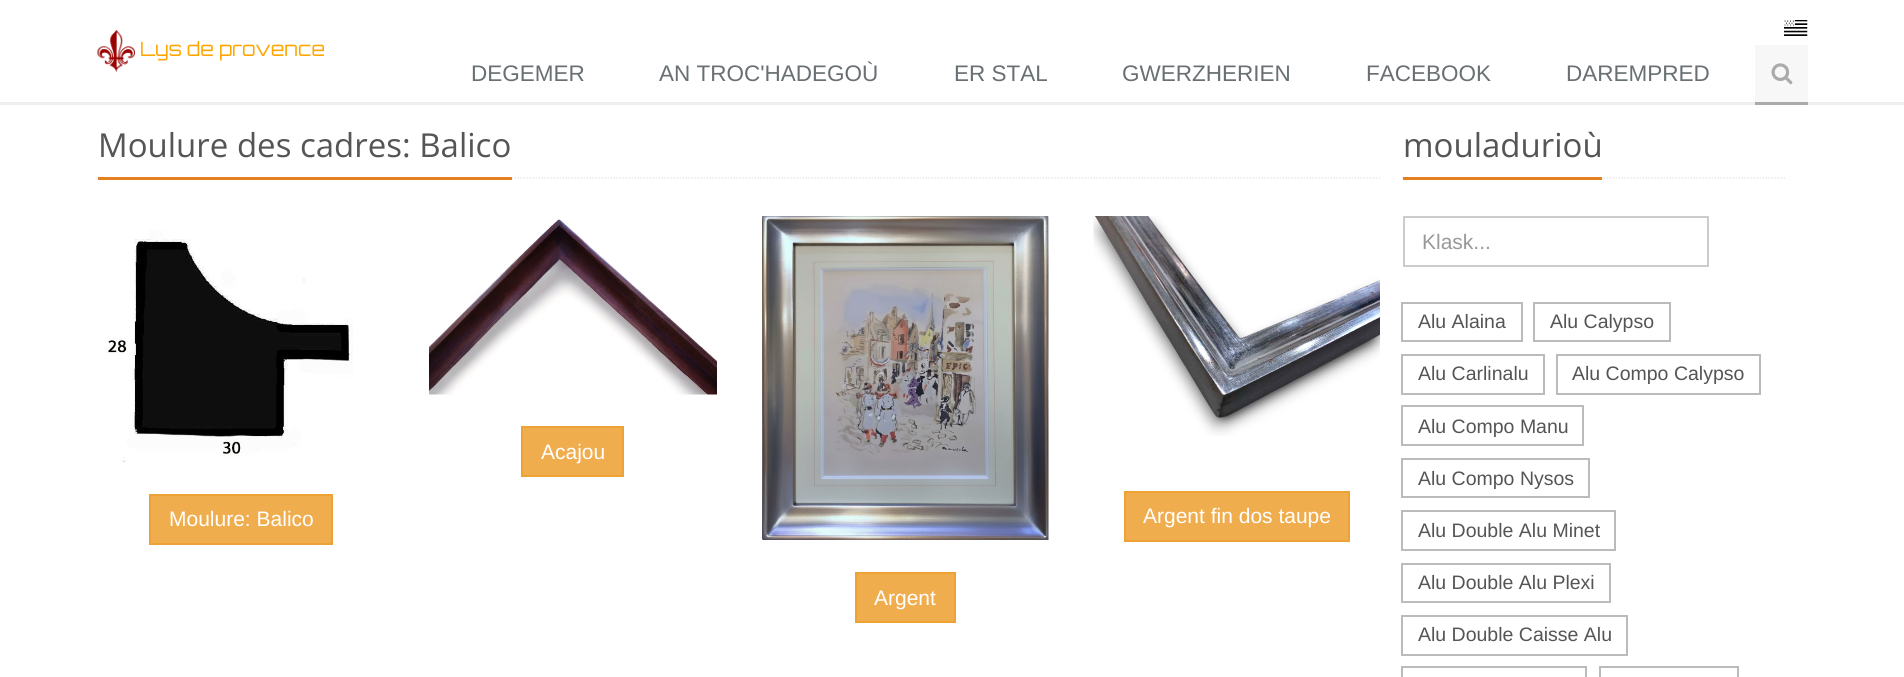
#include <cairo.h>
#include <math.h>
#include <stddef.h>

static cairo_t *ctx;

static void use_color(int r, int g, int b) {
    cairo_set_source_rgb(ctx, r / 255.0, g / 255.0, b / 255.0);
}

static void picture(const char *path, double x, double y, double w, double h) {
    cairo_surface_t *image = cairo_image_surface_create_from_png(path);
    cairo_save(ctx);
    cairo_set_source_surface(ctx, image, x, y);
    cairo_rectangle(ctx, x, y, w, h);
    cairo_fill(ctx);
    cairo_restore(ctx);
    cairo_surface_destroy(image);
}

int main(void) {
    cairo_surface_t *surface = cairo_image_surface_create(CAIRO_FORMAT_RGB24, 1904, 677);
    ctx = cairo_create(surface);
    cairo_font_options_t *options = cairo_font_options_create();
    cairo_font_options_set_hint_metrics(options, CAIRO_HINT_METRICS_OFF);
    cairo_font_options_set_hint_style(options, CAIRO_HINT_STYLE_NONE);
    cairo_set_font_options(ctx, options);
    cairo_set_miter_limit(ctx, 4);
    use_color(255, 255, 255);
    cairo_paint(ctx);
    use_color(238, 238, 238);
    cairo_rectangle(ctx, 0, 102, 1904, 3);
    cairo_fill(ctx);
    picture("img1.png", 1784, 20, 24, 16);
    picture("img2.png", 97, 30, 38, 42);
    cairo_select_font_face(ctx, "Orbitron", CAIRO_FONT_SLANT_NORMAL, CAIRO_FONT_WEIGHT_NORMAL);
    cairo_set_font_size(ctx, 19.5);
    use_color(255, 165, 0);
    cairo_move_to(ctx, 140, 56);
    cairo_show_text(ctx, "Lys de provence");
    cairo_select_font_face(ctx, "Liberation Sans", CAIRO_FONT_SLANT_NORMAL, CAIRO_FONT_WEIGHT_NORMAL);
    cairo_set_font_size(ctx, 22.5);
    use_color(104, 112, 116);
    cairo_move_to(ctx, 471, 81);
    cairo_show_text(ctx, "DEGEMER");
    cairo_move_to(ctx, 659, 81);
    cairo_show_text(ctx, "AN TROC'HADEGOÙ");
    cairo_move_to(ctx, 954, 81);
    cairo_show_text(ctx, "ER STAL");
    cairo_move_to(ctx, 1122, 81);
    cairo_show_text(ctx, "GWERZHERIEN");
    cairo_move_to(ctx, 1366, 81);
    cairo_show_text(ctx, "FACEBOOK");
    cairo_move_to(ctx, 1566, 81);
    cairo_show_text(ctx, "DAREMPRED");
    use_color(247, 247, 247);
    cairo_rectangle(ctx, 1755, 45, 53, 57);
    cairo_fill(ctx);
    use_color(170, 170, 170);
    cairo_rectangle(ctx, 1755, 102, 53, 3);
    cairo_fill(ctx);
    picture("img3.png", 1771, 63, 22, 22);
    cairo_new_path(ctx);
    cairo_move_to(ctx, 97.5, 178);
    cairo_line_to(ctx, 1380, 178);
    use_color(228, 233, 240);
    cairo_set_line_width(ctx, 1.5);
    cairo_set_dash(ctx, (double[]){1.5, 1.5}, 2, 0);
    cairo_stroke(ctx);
    use_color(230, 126, 34);
    cairo_rectangle(ctx, 98, 177, 414, 3);
    cairo_fill(ctx);
    cairo_select_font_face(ctx, "Open Sans", CAIRO_FONT_SLANT_NORMAL, CAIRO_FONT_WEIGHT_NORMAL);
    cairo_set_font_size(ctx, 33);
    use_color(85, 85, 85);
    cairo_move_to(ctx, 98, 157);
    cairo_show_text(ctx, "Moulure des cadres: Balico");
    picture("img4.png", 429, 218, 288, 177);
    use_color(240, 173, 78);
    cairo_rectangle(ctx, 522, 427, 101, 49);
    cairo_fill_preserve(ctx);
    use_color(238, 162, 54);
    cairo_set_line_width(ctx, 2);
    cairo_set_dash(ctx, NULL, 0, 0);
    cairo_stroke(ctx);
    cairo_select_font_face(ctx, "Liberation Sans", CAIRO_FONT_SLANT_NORMAL, CAIRO_FONT_WEIGHT_NORMAL);
    cairo_set_font_size(ctx, 21);
    use_color(255, 255, 255);
    cairo_move_to(ctx, 541, 459);
    cairo_show_text(ctx, "Acajou");
    picture("img5.png", 107, 230, 246, 232);
    use_color(240, 173, 78);
    cairo_rectangle(ctx, 150, 495, 182, 49);
    cairo_fill_preserve(ctx);
    use_color(238, 162, 54);
    cairo_stroke(ctx);
    use_color(255, 255, 255);
    cairo_move_to(ctx, 169, 526);
    cairo_show_text(ctx, "Moulure: Balico");
    picture("img6.png", 1093, 216, 287, 220);
    use_color(240, 173, 78);
    cairo_rectangle(ctx, 1125, 492, 224, 49);
    cairo_fill_preserve(ctx);
    use_color(238, 162, 54);
    cairo_stroke(ctx);
    use_color(255, 255, 255);
    cairo_move_to(ctx, 1143, 523);
    cairo_show_text(ctx, "Argent fin dos taupe");
    picture("img7.png", 762, 216, 287, 324);
    use_color(240, 173, 78);
    cairo_rectangle(ctx, 856, 573, 99, 49);
    cairo_fill_preserve(ctx);
    use_color(238, 162, 54);
    cairo_stroke(ctx);
    use_color(255, 255, 255);
    cairo_move_to(ctx, 874, 605);
    cairo_show_text(ctx, "Argent");
    cairo_new_path(ctx);
    cairo_move_to(ctx, 1402.5, 178);
    cairo_line_to(ctx, 1785, 178);
    use_color(228, 233, 240);
    cairo_set_line_width(ctx, 1.5);
    cairo_set_dash(ctx, (double[]){1.5, 1.5}, 2, 0);
    cairo_stroke(ctx);
    use_color(230, 126, 34);
    cairo_rectangle(ctx, 1403, 177, 199, 3);
    cairo_fill(ctx);
    cairo_select_font_face(ctx, "Open Sans", CAIRO_FONT_SLANT_NORMAL, CAIRO_FONT_WEIGHT_NORMAL);
    cairo_set_font_size(ctx, 33);
    use_color(85, 85, 85);
    cairo_move_to(ctx, 1403, 157);
    cairo_show_text(ctx, "mouladurioù");
    cairo_rectangle(ctx, 1404, 217, 304, 49);
    use_color(204, 204, 204);
    cairo_set_line_width(ctx, 2);
    cairo_set_dash(ctx, NULL, 0, 0);
    cairo_stroke(ctx);
    cairo_select_font_face(ctx, "Liberation Sans", CAIRO_FONT_SLANT_NORMAL, CAIRO_FONT_WEIGHT_NORMAL);
    cairo_set_font_size(ctx, 21);
    use_color(153, 153, 153);
    cairo_move_to(ctx, 1422, 249);
    cairo_show_text(ctx, "Klask...");
    cairo_rectangle(ctx, 1402, 303, 120, 38);
    use_color(187, 187, 187);
    cairo_stroke(ctx);
    cairo_set_font_size(ctx, 19.5);
    use_color(85, 85, 85);
    cairo_move_to(ctx, 1418, 328);
    cairo_show_text(ctx, "Alu Alaina");
    cairo_rectangle(ctx, 1534, 303, 136, 38);
    use_color(187, 187, 187);
    cairo_stroke(ctx);
    use_color(85, 85, 85);
    cairo_move_to(ctx, 1550, 328);
    cairo_show_text(ctx, "Alu Calypso");
    cairo_rectangle(ctx, 1402, 355, 142, 39);
    use_color(187, 187, 187);
    cairo_stroke(ctx);
    use_color(85, 85, 85);
    cairo_move_to(ctx, 1418, 380);
    cairo_show_text(ctx, "Alu Carlinalu");
    cairo_rectangle(ctx, 1557, 355, 203, 39);
    use_color(187, 187, 187);
    cairo_stroke(ctx);
    use_color(85, 85, 85);
    cairo_move_to(ctx, 1572, 380);
    cairo_show_text(ctx, "Alu Compo Calypso");
    cairo_rectangle(ctx, 1402, 406, 181, 39);
    use_color(187, 187, 187);
    cairo_stroke(ctx);
    use_color(85, 85, 85);
    cairo_move_to(ctx, 1418, 433);
    cairo_show_text(ctx, "Alu Compo Manu");
    cairo_rectangle(ctx, 1402, 459, 187, 38);
    use_color(187, 187, 187);
    cairo_stroke(ctx);
    use_color(85, 85, 85);
    cairo_move_to(ctx, 1418, 485);
    cairo_show_text(ctx, "Alu Compo Nysos");
    cairo_rectangle(ctx, 1402, 511, 213, 39);
    use_color(187, 187, 187);
    cairo_stroke(ctx);
    use_color(85, 85, 85);
    cairo_move_to(ctx, 1418, 537);
    cairo_show_text(ctx, "Alu Double Alu Minet");
    cairo_rectangle(ctx, 1402, 564, 208, 38);
    use_color(187, 187, 187);
    cairo_stroke(ctx);
    use_color(85, 85, 85);
    cairo_move_to(ctx, 1418, 589);
    cairo_show_text(ctx, "Alu Double Alu Plexi");
    cairo_rectangle(ctx, 1402, 616, 225, 39);
    use_color(187, 187, 187);
    cairo_stroke(ctx);
    use_color(85, 85, 85);
    cairo_move_to(ctx, 1418, 641);
    cairo_show_text(ctx, "Alu Double Caisse Alu");
    cairo_rectangle(ctx, 1402, 667, 184, 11);
    use_color(187, 187, 187);
    cairo_stroke(ctx);
    cairo_rectangle(ctx, 1600, 667, 138, 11);
    cairo_stroke(ctx);
    cairo_surface_write_to_png(surface, "result.png");
    cairo_font_options_destroy(options);
    cairo_destroy(ctx);
    cairo_surface_destroy(surface);
    return 0;
}
